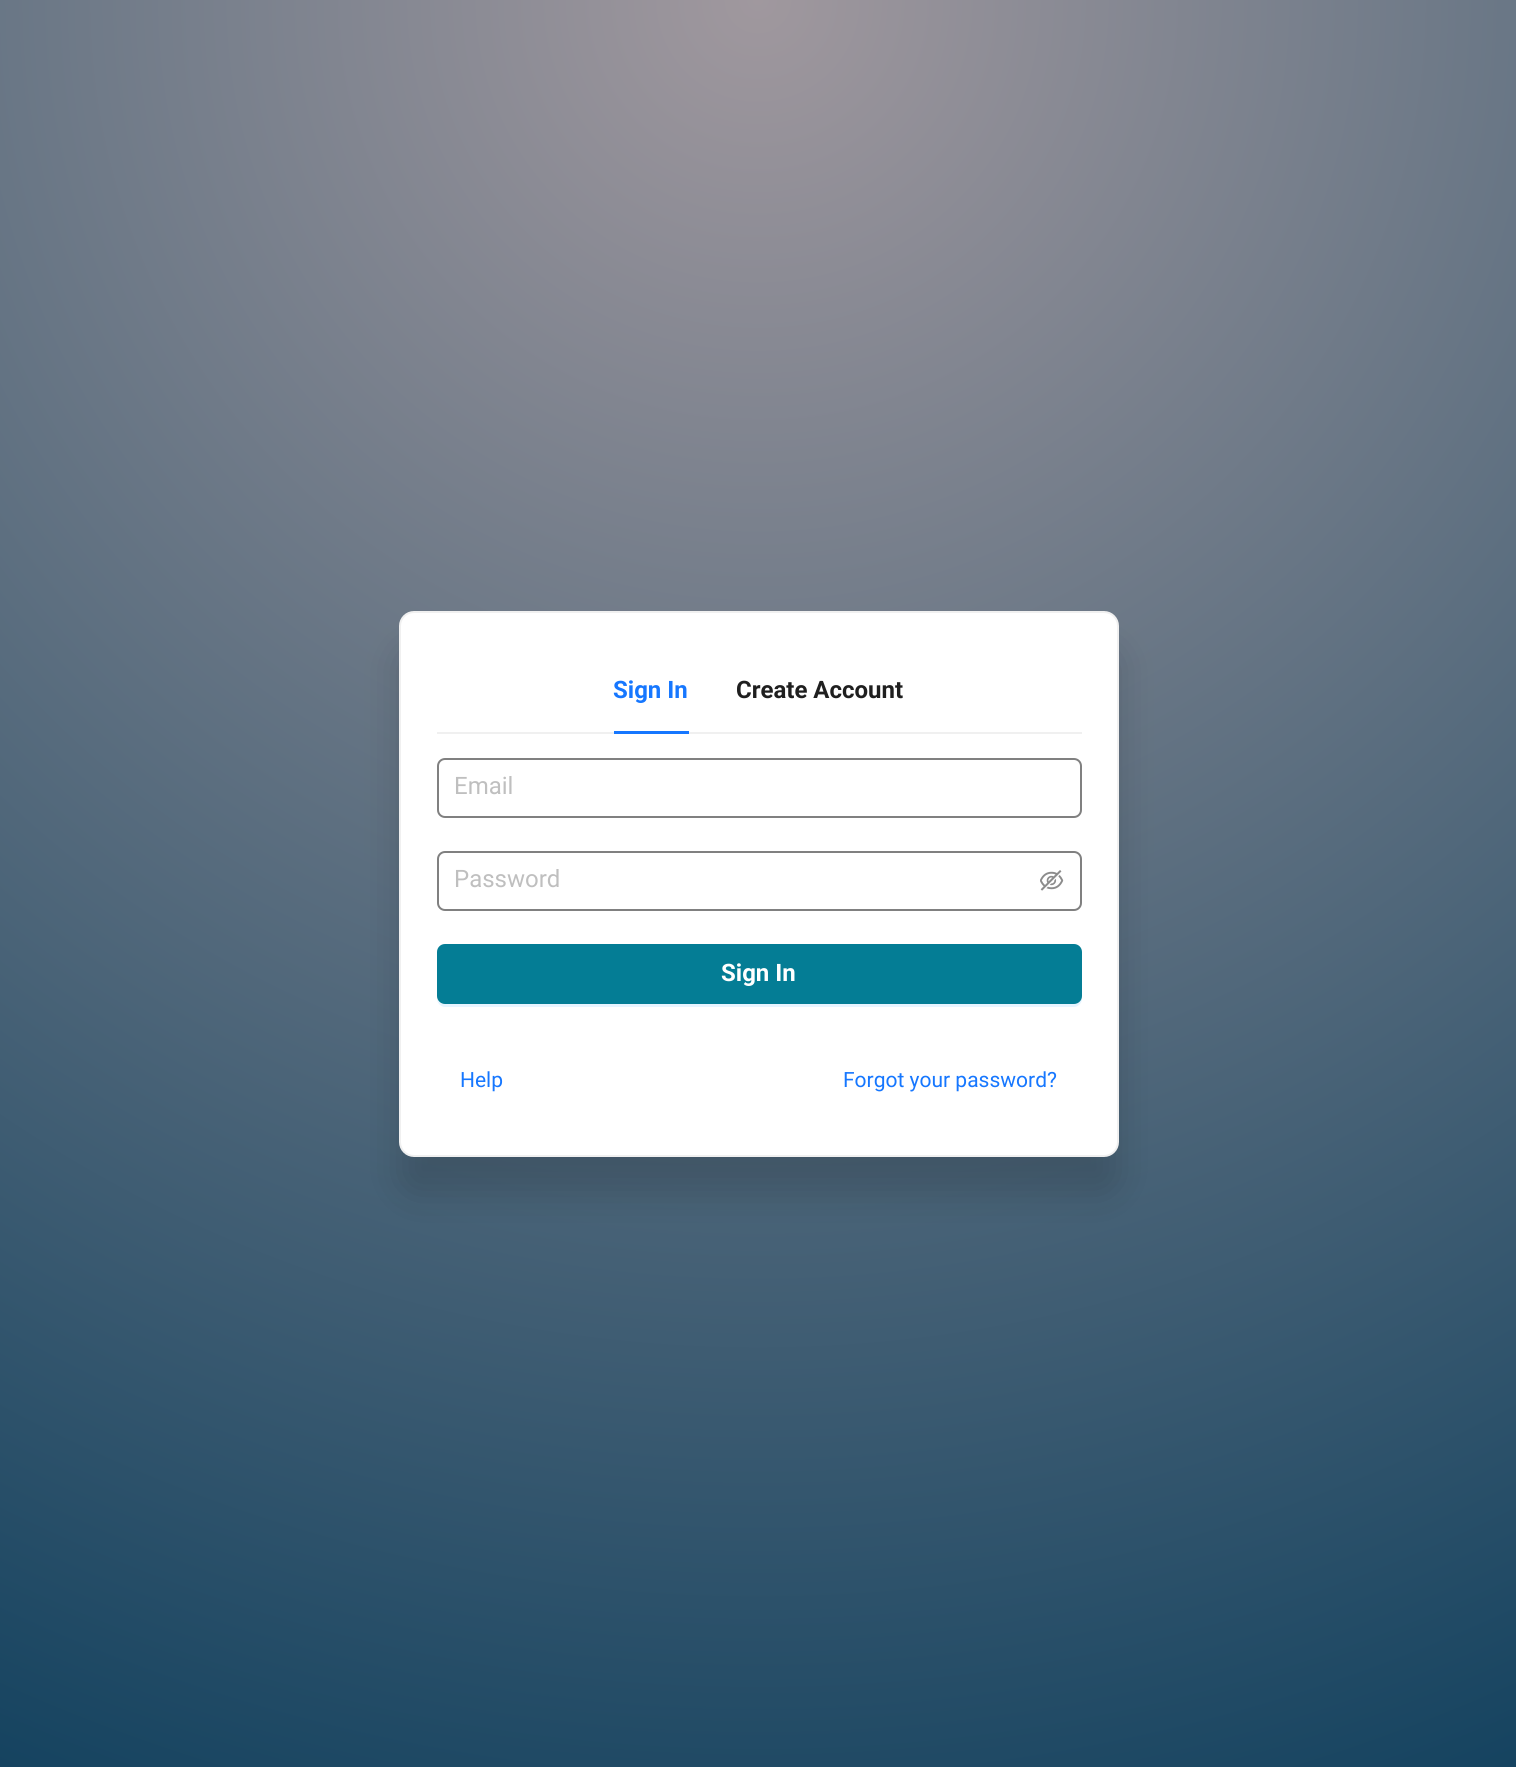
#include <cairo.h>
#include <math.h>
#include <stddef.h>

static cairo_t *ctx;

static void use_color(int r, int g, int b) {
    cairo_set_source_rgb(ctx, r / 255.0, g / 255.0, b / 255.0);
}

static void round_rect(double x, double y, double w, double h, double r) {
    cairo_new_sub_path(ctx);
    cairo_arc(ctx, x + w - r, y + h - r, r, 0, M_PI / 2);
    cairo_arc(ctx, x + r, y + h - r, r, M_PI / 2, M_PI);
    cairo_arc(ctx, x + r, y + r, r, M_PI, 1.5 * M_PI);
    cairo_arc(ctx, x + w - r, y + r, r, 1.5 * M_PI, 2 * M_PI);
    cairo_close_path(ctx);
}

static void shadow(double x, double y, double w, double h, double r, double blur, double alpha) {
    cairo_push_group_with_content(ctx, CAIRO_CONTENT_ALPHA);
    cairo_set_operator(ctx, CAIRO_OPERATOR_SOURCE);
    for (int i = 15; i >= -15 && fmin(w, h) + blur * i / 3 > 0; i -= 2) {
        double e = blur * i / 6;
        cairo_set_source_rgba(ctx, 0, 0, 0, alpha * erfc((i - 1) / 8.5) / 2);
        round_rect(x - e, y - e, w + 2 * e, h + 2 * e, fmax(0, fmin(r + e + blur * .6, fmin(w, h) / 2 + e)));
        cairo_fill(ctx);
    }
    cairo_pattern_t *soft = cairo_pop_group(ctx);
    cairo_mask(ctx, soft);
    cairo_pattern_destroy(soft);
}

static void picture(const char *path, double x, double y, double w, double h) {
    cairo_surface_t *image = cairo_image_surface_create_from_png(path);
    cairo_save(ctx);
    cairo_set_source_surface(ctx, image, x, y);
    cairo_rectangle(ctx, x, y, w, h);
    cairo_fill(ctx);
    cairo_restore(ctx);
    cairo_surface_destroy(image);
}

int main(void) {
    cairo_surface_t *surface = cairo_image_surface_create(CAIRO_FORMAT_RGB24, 1516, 1767);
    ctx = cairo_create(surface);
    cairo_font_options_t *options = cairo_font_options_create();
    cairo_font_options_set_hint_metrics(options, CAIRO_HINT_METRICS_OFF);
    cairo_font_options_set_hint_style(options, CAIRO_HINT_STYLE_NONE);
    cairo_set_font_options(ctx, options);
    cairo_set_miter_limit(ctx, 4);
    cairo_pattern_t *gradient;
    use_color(255, 255, 255);
    cairo_paint(ctx);
    gradient = cairo_pattern_create_radial(758, 0, 0, 758, 0, 1923);
    cairo_pattern_add_color_stop_rgba(gradient, 0, 0.627, 0.596, 0.62, 1);
    cairo_pattern_add_color_stop_rgba(gradient, 1, 0.082, 0.263, 0.376, 1);
    cairo_set_source(ctx, gradient);
    cairo_pattern_destroy(gradient);
    cairo_rectangle(ctx, 0, 0, 1516, 1767);
    cairo_fill(ctx);
    use_color(0, 0, 0);
    shadow(399, 648, 720, 546, 15, 19, 0.15);
    use_color(255, 255, 255);
    round_rect(400, 612, 718, 544, 14);
    cairo_fill_preserve(ctx);
    use_color(240, 240, 240);
    cairo_stroke(ctx);
    cairo_select_font_face(ctx, "Roboto", CAIRO_FONT_SLANT_NORMAL, CAIRO_FONT_WEIGHT_BOLD);
    cairo_set_font_size(ctx, 24);
    use_color(22, 119, 255);
    cairo_move_to(ctx, 613, 698);
    cairo_show_text(ctx, "Sign In");
    use_color(31, 31, 31);
    cairo_move_to(ctx, 736, 698);
    cairo_show_text(ctx, "Create Account");
    use_color(240, 240, 240);
    cairo_rectangle(ctx, 437, 732, 645, 2);
    cairo_fill(ctx);
    use_color(22, 119, 255);
    cairo_rectangle(ctx, 614, 731, 75, 3);
    cairo_fill(ctx);
    round_rect(438, 759, 643, 58, 7);
    use_color(128, 128, 128);
    cairo_stroke(ctx);
    cairo_select_font_face(ctx, "Roboto", CAIRO_FONT_SLANT_NORMAL, CAIRO_FONT_WEIGHT_NORMAL);
    use_color(191, 191, 191);
    cairo_move_to(ctx, 454, 794);
    cairo_show_text(ctx, "Email");
    round_rect(438, 852, 643, 58, 7);
    use_color(128, 128, 128);
    cairo_stroke(ctx);
    use_color(191, 191, 191);
    cairo_move_to(ctx, 454, 887);
    cairo_show_text(ctx, "Password");
    picture("img1.png", 1040, 870, 24, 21);
    use_color(230, 244, 255);
    cairo_new_path(ctx);
    cairo_move_to(ctx, 437, 999);
    cairo_curve_to(ctx, 437, 1003, 441, 1007, 445, 1007);
    cairo_line_to(ctx, 1074, 1007);
    cairo_curve_to(ctx, 1078, 1007, 1082, 1003, 1082, 999);
    cairo_line_to(ctx, 1082, 955);
    cairo_line_to(ctx, 1082, 952);
    cairo_line_to(ctx, 1082, 996);
    cairo_curve_to(ctx, 1082, 1000, 1078, 1004, 1074, 1004);
    cairo_line_to(ctx, 444, 1004);
    cairo_curve_to(ctx, 441, 1004, 438, 1002, 437, 999);
    cairo_close_path(ctx);
    cairo_fill(ctx);
    use_color(4, 125, 149);
    round_rect(437, 944, 645, 60, 8);
    cairo_fill(ctx);
    cairo_select_font_face(ctx, "Roboto", CAIRO_FONT_SLANT_NORMAL, CAIRO_FONT_WEIGHT_BOLD);
    use_color(255, 255, 255);
    cairo_move_to(ctx, 721, 981);
    cairo_show_text(ctx, "Sign In");
    cairo_select_font_face(ctx, "Roboto", CAIRO_FONT_SLANT_NORMAL, CAIRO_FONT_WEIGHT_NORMAL);
    cairo_set_font_size(ctx, 21);
    use_color(22, 119, 255);
    cairo_move_to(ctx, 460, 1087);
    cairo_show_text(ctx, "Help");
    cairo_move_to(ctx, 843, 1087);
    cairo_show_text(ctx, "Forgot your password?");
    cairo_surface_write_to_png(surface, "result.png");
    cairo_font_options_destroy(options);
    cairo_destroy(ctx);
    cairo_surface_destroy(surface);
    return 0;
}
